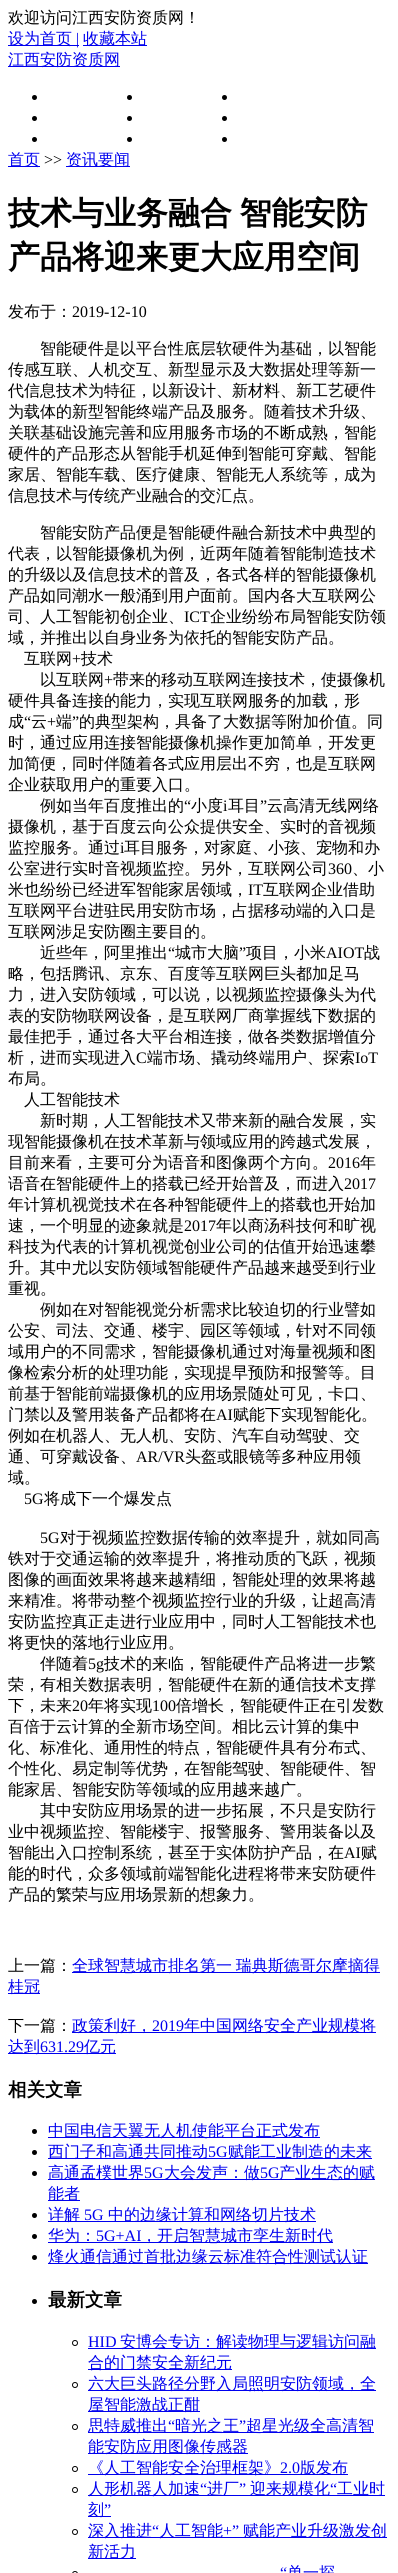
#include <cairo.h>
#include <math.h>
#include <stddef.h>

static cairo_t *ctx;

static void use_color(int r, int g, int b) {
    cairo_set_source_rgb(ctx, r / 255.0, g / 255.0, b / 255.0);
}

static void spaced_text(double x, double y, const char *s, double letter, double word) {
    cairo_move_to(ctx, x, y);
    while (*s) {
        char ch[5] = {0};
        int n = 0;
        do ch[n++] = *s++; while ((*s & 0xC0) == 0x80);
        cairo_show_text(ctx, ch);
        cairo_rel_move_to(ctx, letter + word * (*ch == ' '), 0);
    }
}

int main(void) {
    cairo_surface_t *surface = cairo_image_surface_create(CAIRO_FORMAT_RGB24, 398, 2573);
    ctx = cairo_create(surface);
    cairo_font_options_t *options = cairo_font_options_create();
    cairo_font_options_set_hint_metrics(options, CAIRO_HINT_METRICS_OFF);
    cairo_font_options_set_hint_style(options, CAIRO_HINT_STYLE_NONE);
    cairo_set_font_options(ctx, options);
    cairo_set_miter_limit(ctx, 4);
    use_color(255, 255, 255);
    cairo_paint(ctx);
    cairo_select_font_face(ctx, "WenQuanYi Zen Hei Medium", CAIRO_FONT_SLANT_NORMAL, CAIRO_FONT_WEIGHT_NORMAL);
    cairo_set_font_size(ctx, 16);
    use_color(0, 0, 0);
    cairo_move_to(ctx, 8, 23);
    cairo_show_text(ctx, "欢迎访问江西安防资质网！");
    use_color(0, 0, 238);
    cairo_rectangle(ctx, 8, 45, 71, 1);
    cairo_fill(ctx);
    cairo_move_to(ctx, 8, 44);
    cairo_show_text(ctx, "设为首页");
    cairo_select_font_face(ctx, "Liberation Serif", CAIRO_FONT_SLANT_NORMAL, CAIRO_FONT_WEIGHT_NORMAL);
    cairo_move_to(ctx, 76, 44);
    cairo_show_text(ctx, "|");
    cairo_rectangle(ctx, 83, 45, 64, 1);
    cairo_fill(ctx);
    cairo_select_font_face(ctx, "WenQuanYi Zen Hei Medium", CAIRO_FONT_SLANT_NORMAL, CAIRO_FONT_WEIGHT_NORMAL);
    cairo_move_to(ctx, 83, 44);
    cairo_show_text(ctx, "收藏本站");
    cairo_rectangle(ctx, 8, 66, 112, 1);
    cairo_fill(ctx);
    cairo_move_to(ctx, 8, 65);
    cairo_show_text(ctx, "江西安防资质网");
    use_color(0, 0, 0);
    cairo_new_path(ctx);
    cairo_arc(ctx, 34.5, 97.5, 2.5, 0, 2 * M_PI);
    cairo_fill(ctx);
    cairo_arc(ctx, 129.5, 97.5, 2.5, 0, 2 * M_PI);
    cairo_fill(ctx);
    cairo_arc(ctx, 224.5, 97.5, 2.5, 0, 2 * M_PI);
    cairo_fill(ctx);
    cairo_arc(ctx, 34.5, 118.5, 2.5, 0, 2 * M_PI);
    cairo_fill(ctx);
    cairo_arc(ctx, 129.5, 118.5, 2.5, 0, 2 * M_PI);
    cairo_fill(ctx);
    cairo_arc(ctx, 224.5, 118.5, 2.5, 0, 2 * M_PI);
    cairo_fill(ctx);
    cairo_arc(ctx, 34.5, 139.5, 2.5, 0, 2 * M_PI);
    cairo_fill(ctx);
    cairo_arc(ctx, 129.5, 139.5, 2.5, 0, 2 * M_PI);
    cairo_fill(ctx);
    cairo_arc(ctx, 224.5, 139.5, 2.5, 0, 2 * M_PI);
    cairo_fill(ctx);
    use_color(0, 0, 238);
    cairo_rectangle(ctx, 8, 166, 32, 1);
    cairo_fill(ctx);
    cairo_move_to(ctx, 8, 165);
    cairo_show_text(ctx, "首页");
    cairo_select_font_face(ctx, "Liberation Serif", CAIRO_FONT_SLANT_NORMAL, CAIRO_FONT_WEIGHT_NORMAL);
    use_color(0, 0, 0);
    cairo_move_to(ctx, 44, 165);
    cairo_show_text(ctx, ">>");
    use_color(0, 0, 238);
    cairo_rectangle(ctx, 66, 166, 64, 1);
    cairo_fill(ctx);
    cairo_select_font_face(ctx, "WenQuanYi Zen Hei Medium", CAIRO_FONT_SLANT_NORMAL, CAIRO_FONT_WEIGHT_NORMAL);
    cairo_move_to(ctx, 66, 165);
    cairo_show_text(ctx, "资讯要闻");
    cairo_select_font_face(ctx, "WenQuanYi Zen Hei", CAIRO_FONT_SLANT_NORMAL, CAIRO_FONT_WEIGHT_BOLD);
    cairo_set_font_size(ctx, 32);
    use_color(0, 0, 0);
    spaced_text(8, 224, "技术与业务融合 智能安防", 0, -2);
    cairo_move_to(ctx, 8, 268);
    cairo_show_text(ctx, "产品将迎来更大应用空间");
    cairo_select_font_face(ctx, "WenQuanYi Zen Hei Medium", CAIRO_FONT_SLANT_NORMAL, CAIRO_FONT_WEIGHT_NORMAL);
    cairo_set_font_size(ctx, 16);
    cairo_move_to(ctx, 8, 317);
    cairo_show_text(ctx, "发布于：");
    cairo_select_font_face(ctx, "Liberation Serif", CAIRO_FONT_SLANT_NORMAL, CAIRO_FONT_WEIGHT_NORMAL);
    cairo_move_to(ctx, 72, 317);
    cairo_show_text(ctx, "2019-12-10");
    cairo_select_font_face(ctx, "WenQuanYi Zen Hei Medium", CAIRO_FONT_SLANT_NORMAL, CAIRO_FONT_WEIGHT_NORMAL);
    cairo_move_to(ctx, 40, 354);
    cairo_show_text(ctx, "智能硬件是以平台性底层软硬件为基础，以智能");
    cairo_move_to(ctx, 8, 375);
    cairo_show_text(ctx, "传感互联、人机交互、新型显示及大数据处理等新一");
    cairo_move_to(ctx, 8, 396);
    cairo_show_text(ctx, "代信息技术为特征，以新设计、新材料、新工艺硬件");
    cairo_move_to(ctx, 8, 417);
    cairo_show_text(ctx, "为载体的新型智能终端产品及服务。随着技术升级、");
    cairo_move_to(ctx, 8, 438);
    cairo_show_text(ctx, "关联基础设施完善和应用服务市场的不断成熟，智能");
    cairo_move_to(ctx, 8, 459);
    cairo_show_text(ctx, "硬件的产品形态从智能手机延伸到智能可穿戴、智能");
    cairo_move_to(ctx, 8, 480);
    cairo_show_text(ctx, "家居、智能车载、医疗健康、智能无人系统等，成为");
    cairo_move_to(ctx, 8, 501);
    cairo_show_text(ctx, "信息技术与传统产业融合的交汇点。");
    cairo_move_to(ctx, 40, 538);
    cairo_show_text(ctx, "智能安防产品便是智能硬件融合新技术中典型的");
    cairo_move_to(ctx, 8, 559);
    cairo_show_text(ctx, "代表，以智能摄像机为例，近两年随着智能制造技术");
    cairo_move_to(ctx, 8, 580);
    cairo_show_text(ctx, "的升级以及信息技术的普及，各式各样的智能摄像机");
    cairo_move_to(ctx, 8, 601);
    cairo_show_text(ctx, "产品如同潮水一般涌到用户面前。国内各大互联网公");
    cairo_move_to(ctx, 8, 622);
    cairo_show_text(ctx, "司、人工智能初创企业、");
    cairo_select_font_face(ctx, "Liberation Serif", CAIRO_FONT_SLANT_NORMAL, CAIRO_FONT_WEIGHT_NORMAL);
    cairo_move_to(ctx, 184, 622);
    cairo_show_text(ctx, "ICT");
    cairo_select_font_face(ctx, "WenQuanYi Zen Hei Medium", CAIRO_FONT_SLANT_NORMAL, CAIRO_FONT_WEIGHT_NORMAL);
    cairo_move_to(ctx, 210, 622);
    cairo_show_text(ctx, "企业纷纷布局智能安防领");
    cairo_move_to(ctx, 8, 643);
    cairo_show_text(ctx, "域，并推出以自身业务为依托的智能安防产品。");
    cairo_move_to(ctx, 24, 664);
    cairo_show_text(ctx, "互联网");
    cairo_select_font_face(ctx, "Liberation Serif", CAIRO_FONT_SLANT_NORMAL, CAIRO_FONT_WEIGHT_NORMAL);
    cairo_move_to(ctx, 72, 664);
    cairo_show_text(ctx, "+");
    cairo_select_font_face(ctx, "WenQuanYi Zen Hei Medium", CAIRO_FONT_SLANT_NORMAL, CAIRO_FONT_WEIGHT_NORMAL);
    cairo_move_to(ctx, 81, 664);
    cairo_show_text(ctx, "技术");
    cairo_move_to(ctx, 40, 685);
    cairo_show_text(ctx, "以互联网");
    cairo_select_font_face(ctx, "Liberation Serif", CAIRO_FONT_SLANT_NORMAL, CAIRO_FONT_WEIGHT_NORMAL);
    cairo_move_to(ctx, 104, 685);
    cairo_show_text(ctx, "+");
    cairo_select_font_face(ctx, "WenQuanYi Zen Hei Medium", CAIRO_FONT_SLANT_NORMAL, CAIRO_FONT_WEIGHT_NORMAL);
    cairo_move_to(ctx, 113, 685);
    cairo_show_text(ctx, "带来的移动互联网连接技术，使摄像机");
    cairo_move_to(ctx, 8, 706);
    cairo_show_text(ctx, "硬件具备连接的能力，实现互联网服务的加载，形");
    cairo_move_to(ctx, 8, 727);
    cairo_show_text(ctx, "成");
    cairo_select_font_face(ctx, "Liberation Serif", CAIRO_FONT_SLANT_NORMAL, CAIRO_FONT_WEIGHT_NORMAL);
    cairo_move_to(ctx, 24, 727);
    cairo_show_text(ctx, "“");
    cairo_select_font_face(ctx, "WenQuanYi Zen Hei Medium", CAIRO_FONT_SLANT_NORMAL, CAIRO_FONT_WEIGHT_NORMAL);
    cairo_move_to(ctx, 31, 727);
    cairo_show_text(ctx, "云");
    cairo_select_font_face(ctx, "Liberation Serif", CAIRO_FONT_SLANT_NORMAL, CAIRO_FONT_WEIGHT_NORMAL);
    cairo_move_to(ctx, 47, 727);
    cairo_show_text(ctx, "+");
    cairo_select_font_face(ctx, "WenQuanYi Zen Hei Medium", CAIRO_FONT_SLANT_NORMAL, CAIRO_FONT_WEIGHT_NORMAL);
    cairo_move_to(ctx, 56, 727);
    cairo_show_text(ctx, "端");
    cairo_select_font_face(ctx, "Liberation Serif", CAIRO_FONT_SLANT_NORMAL, CAIRO_FONT_WEIGHT_NORMAL);
    cairo_move_to(ctx, 72, 727);
    cairo_show_text(ctx, "”");
    cairo_select_font_face(ctx, "WenQuanYi Zen Hei Medium", CAIRO_FONT_SLANT_NORMAL, CAIRO_FONT_WEIGHT_NORMAL);
    cairo_move_to(ctx, 79, 727);
    cairo_show_text(ctx, "的典型架构，具备了大数据等附加价值。同");
    cairo_move_to(ctx, 8, 748);
    cairo_show_text(ctx, "时，通过应用连接智能摄像机操作更加简单，开发更");
    cairo_move_to(ctx, 8, 769);
    cairo_show_text(ctx, "加简便，同时伴随着各式应用层出不穷，也是互联网");
    cairo_move_to(ctx, 8, 790);
    cairo_show_text(ctx, "企业获取用户的重要入口。");
    cairo_move_to(ctx, 40, 811);
    cairo_show_text(ctx, "例如当年百度推出的");
    cairo_select_font_face(ctx, "Liberation Serif", CAIRO_FONT_SLANT_NORMAL, CAIRO_FONT_WEIGHT_NORMAL);
    cairo_move_to(ctx, 184, 811);
    cairo_show_text(ctx, "“");
    cairo_select_font_face(ctx, "WenQuanYi Zen Hei Medium", CAIRO_FONT_SLANT_NORMAL, CAIRO_FONT_WEIGHT_NORMAL);
    cairo_move_to(ctx, 191, 811);
    cairo_show_text(ctx, "小度");
    cairo_select_font_face(ctx, "Liberation Serif", CAIRO_FONT_SLANT_NORMAL, CAIRO_FONT_WEIGHT_NORMAL);
    cairo_move_to(ctx, 223, 811);
    cairo_show_text(ctx, "i");
    cairo_select_font_face(ctx, "WenQuanYi Zen Hei Medium", CAIRO_FONT_SLANT_NORMAL, CAIRO_FONT_WEIGHT_NORMAL);
    cairo_move_to(ctx, 228, 811);
    cairo_show_text(ctx, "耳目");
    cairo_select_font_face(ctx, "Liberation Serif", CAIRO_FONT_SLANT_NORMAL, CAIRO_FONT_WEIGHT_NORMAL);
    cairo_move_to(ctx, 260, 811);
    cairo_show_text(ctx, "”");
    cairo_select_font_face(ctx, "WenQuanYi Zen Hei Medium", CAIRO_FONT_SLANT_NORMAL, CAIRO_FONT_WEIGHT_NORMAL);
    cairo_move_to(ctx, 267, 811);
    cairo_show_text(ctx, "云高清无线网络");
    cairo_move_to(ctx, 8, 832);
    cairo_show_text(ctx, "摄像机，基于百度云向公众提供安全、实时的音视频");
    cairo_move_to(ctx, 8, 853);
    cairo_show_text(ctx, "监控服务。通过");
    cairo_select_font_face(ctx, "Liberation Serif", CAIRO_FONT_SLANT_NORMAL, CAIRO_FONT_WEIGHT_NORMAL);
    cairo_move_to(ctx, 120, 853);
    cairo_show_text(ctx, "i");
    cairo_select_font_face(ctx, "WenQuanYi Zen Hei Medium", CAIRO_FONT_SLANT_NORMAL, CAIRO_FONT_WEIGHT_NORMAL);
    cairo_move_to(ctx, 124, 853);
    cairo_show_text(ctx, "耳目服务，对家庭、小孩、宠物和办");
    cairo_move_to(ctx, 8, 874);
    cairo_show_text(ctx, "公室进行实时音视频监控。另外，互联网公司");
    cairo_select_font_face(ctx, "Liberation Serif", CAIRO_FONT_SLANT_NORMAL, CAIRO_FONT_WEIGHT_NORMAL);
    cairo_move_to(ctx, 328, 874);
    cairo_show_text(ctx, "360");
    cairo_select_font_face(ctx, "WenQuanYi Zen Hei Medium", CAIRO_FONT_SLANT_NORMAL, CAIRO_FONT_WEIGHT_NORMAL);
    cairo_move_to(ctx, 352, 874);
    cairo_show_text(ctx, "、小");
    cairo_move_to(ctx, 8, 895);
    cairo_show_text(ctx, "米也纷纷已经进军智能家居领域，");
    cairo_select_font_face(ctx, "Liberation Serif", CAIRO_FONT_SLANT_NORMAL, CAIRO_FONT_WEIGHT_NORMAL);
    cairo_move_to(ctx, 248, 895);
    cairo_show_text(ctx, "IT");
    cairo_select_font_face(ctx, "WenQuanYi Zen Hei Medium", CAIRO_FONT_SLANT_NORMAL, CAIRO_FONT_WEIGHT_NORMAL);
    cairo_move_to(ctx, 263, 895);
    cairo_show_text(ctx, "互联网企业借助");
    cairo_move_to(ctx, 8, 916);
    cairo_show_text(ctx, "互联网平台进驻民用安防市场，占据移动端的入口是");
    cairo_move_to(ctx, 8, 937);
    cairo_show_text(ctx, "互联网涉足安防圈主要目的。");
    cairo_move_to(ctx, 40, 958);
    cairo_show_text(ctx, "近些年，阿里推出");
    cairo_select_font_face(ctx, "Liberation Serif", CAIRO_FONT_SLANT_NORMAL, CAIRO_FONT_WEIGHT_NORMAL);
    cairo_move_to(ctx, 168, 958);
    cairo_show_text(ctx, "“");
    cairo_select_font_face(ctx, "WenQuanYi Zen Hei Medium", CAIRO_FONT_SLANT_NORMAL, CAIRO_FONT_WEIGHT_NORMAL);
    cairo_move_to(ctx, 175, 958);
    cairo_show_text(ctx, "城市大脑");
    cairo_select_font_face(ctx, "Liberation Serif", CAIRO_FONT_SLANT_NORMAL, CAIRO_FONT_WEIGHT_NORMAL);
    cairo_move_to(ctx, 239, 958);
    cairo_show_text(ctx, "”");
    cairo_select_font_face(ctx, "WenQuanYi Zen Hei Medium", CAIRO_FONT_SLANT_NORMAL, CAIRO_FONT_WEIGHT_NORMAL);
    cairo_move_to(ctx, 246, 958);
    cairo_show_text(ctx, "项目，小米");
    cairo_select_font_face(ctx, "Liberation Serif", CAIRO_FONT_SLANT_NORMAL, CAIRO_FONT_WEIGHT_NORMAL);
    cairo_move_to(ctx, 326, 958);
    cairo_show_text(ctx, "AIOT");
    cairo_select_font_face(ctx, "WenQuanYi Zen Hei Medium", CAIRO_FONT_SLANT_NORMAL, CAIRO_FONT_WEIGHT_NORMAL);
    cairo_move_to(ctx, 364, 958);
    cairo_show_text(ctx, "战");
    cairo_move_to(ctx, 8, 979);
    cairo_show_text(ctx, "略，包括腾讯、京东、百度等互联网巨头都加足马");
    cairo_move_to(ctx, 8, 1000);
    cairo_show_text(ctx, "力，进入安防领域，可以说，以视频监控摄像头为代");
    cairo_move_to(ctx, 8, 1021);
    cairo_show_text(ctx, "表的安防物联网设备，是互联网厂商掌握线下数据的");
    cairo_move_to(ctx, 8, 1042);
    cairo_show_text(ctx, "最佳把手，通过各大平台相连接，做各类数据增值分");
    cairo_move_to(ctx, 8, 1063);
    cairo_show_text(ctx, "析，进而实现进入");
    cairo_select_font_face(ctx, "Liberation Serif", CAIRO_FONT_SLANT_NORMAL, CAIRO_FONT_WEIGHT_NORMAL);
    cairo_move_to(ctx, 136, 1063);
    cairo_show_text(ctx, "C");
    cairo_select_font_face(ctx, "WenQuanYi Zen Hei Medium", CAIRO_FONT_SLANT_NORMAL, CAIRO_FONT_WEIGHT_NORMAL);
    cairo_move_to(ctx, 147, 1063);
    cairo_show_text(ctx, "端市场、撬动终端用户、探索");
    cairo_select_font_face(ctx, "Liberation Serif", CAIRO_FONT_SLANT_NORMAL, CAIRO_FONT_WEIGHT_NORMAL);
    cairo_move_to(ctx, 355, 1063);
    cairo_show_text(ctx, "IoT");
    cairo_select_font_face(ctx, "WenQuanYi Zen Hei Medium", CAIRO_FONT_SLANT_NORMAL, CAIRO_FONT_WEIGHT_NORMAL);
    cairo_move_to(ctx, 8, 1084);
    cairo_show_text(ctx, "布局。");
    cairo_move_to(ctx, 24, 1105);
    cairo_show_text(ctx, "人工智能技术");
    cairo_move_to(ctx, 40, 1126);
    cairo_show_text(ctx, "新时期，人工智能技术又带来新的融合发展，实");
    cairo_move_to(ctx, 8, 1147);
    cairo_show_text(ctx, "现智能摄像机在技术革新与领域应用的跨越式发展，");
    cairo_move_to(ctx, 8, 1168);
    cairo_show_text(ctx, "目前来看，主要可分为语音和图像两个方向。");
    cairo_select_font_face(ctx, "Liberation Serif", CAIRO_FONT_SLANT_NORMAL, CAIRO_FONT_WEIGHT_NORMAL);
    cairo_move_to(ctx, 328, 1168);
    cairo_show_text(ctx, "2016");
    cairo_select_font_face(ctx, "WenQuanYi Zen Hei Medium", CAIRO_FONT_SLANT_NORMAL, CAIRO_FONT_WEIGHT_NORMAL);
    cairo_move_to(ctx, 360, 1168);
    cairo_show_text(ctx, "年");
    cairo_move_to(ctx, 8, 1189);
    cairo_show_text(ctx, "语音在智能硬件上的搭载已经开始普及，而进入");
    cairo_select_font_face(ctx, "Liberation Serif", CAIRO_FONT_SLANT_NORMAL, CAIRO_FONT_WEIGHT_NORMAL);
    cairo_move_to(ctx, 344, 1189);
    cairo_show_text(ctx, "2017");
    cairo_select_font_face(ctx, "WenQuanYi Zen Hei Medium", CAIRO_FONT_SLANT_NORMAL, CAIRO_FONT_WEIGHT_NORMAL);
    cairo_move_to(ctx, 8, 1210);
    cairo_show_text(ctx, "年计算机视觉技术在各种智能硬件上的搭载也开始加");
    cairo_move_to(ctx, 8, 1231);
    cairo_show_text(ctx, "速，一个明显的迹象就是");
    cairo_select_font_face(ctx, "Liberation Serif", CAIRO_FONT_SLANT_NORMAL, CAIRO_FONT_WEIGHT_NORMAL);
    cairo_move_to(ctx, 184, 1231);
    cairo_show_text(ctx, "2017");
    cairo_select_font_face(ctx, "WenQuanYi Zen Hei Medium", CAIRO_FONT_SLANT_NORMAL, CAIRO_FONT_WEIGHT_NORMAL);
    cairo_move_to(ctx, 216, 1231);
    cairo_show_text(ctx, "年以商汤科技何和旷视");
    cairo_move_to(ctx, 8, 1252);
    cairo_show_text(ctx, "科技为代表的计算机视觉创业公司的估值开始迅速攀");
    cairo_move_to(ctx, 8, 1273);
    cairo_show_text(ctx, "升。其中尤以安防领域智能硬件产品越来越受到行业");
    cairo_move_to(ctx, 8, 1294);
    cairo_show_text(ctx, "重视。");
    cairo_move_to(ctx, 40, 1315);
    cairo_show_text(ctx, "例如在对智能视觉分析需求比较迫切的行业譬如");
    cairo_move_to(ctx, 8, 1336);
    cairo_show_text(ctx, "公安、司法、交通、楼宇、园区等领域，针对不同领");
    cairo_move_to(ctx, 8, 1357);
    cairo_show_text(ctx, "域用户的不同需求，智能摄像机通过对海量视频和图");
    cairo_move_to(ctx, 8, 1378);
    cairo_show_text(ctx, "像检索分析的处理功能，实现提早预防和报警等。目");
    cairo_move_to(ctx, 8, 1399);
    cairo_show_text(ctx, "前基于智能前端摄像机的应用场景随处可见，卡口、");
    cairo_move_to(ctx, 8, 1420);
    cairo_show_text(ctx, "门禁以及警用装备产品都将在");
    cairo_select_font_face(ctx, "Liberation Serif", CAIRO_FONT_SLANT_NORMAL, CAIRO_FONT_WEIGHT_NORMAL);
    cairo_move_to(ctx, 216, 1420);
    cairo_show_text(ctx, "AI");
    cairo_select_font_face(ctx, "WenQuanYi Zen Hei Medium", CAIRO_FONT_SLANT_NORMAL, CAIRO_FONT_WEIGHT_NORMAL);
    cairo_move_to(ctx, 233, 1420);
    cairo_show_text(ctx, "赋能下实现智能化。");
    cairo_move_to(ctx, 8, 1441);
    cairo_show_text(ctx, "例如在机器人、无人机、安防、汽车自动驾驶、交");
    cairo_move_to(ctx, 8, 1462);
    cairo_show_text(ctx, "通、可穿戴设备、");
    cairo_select_font_face(ctx, "Liberation Serif", CAIRO_FONT_SLANT_NORMAL, CAIRO_FONT_WEIGHT_NORMAL);
    cairo_move_to(ctx, 136, 1462);
    cairo_show_text(ctx, "AR/VR");
    cairo_select_font_face(ctx, "WenQuanYi Zen Hei Medium", CAIRO_FONT_SLANT_NORMAL, CAIRO_FONT_WEIGHT_NORMAL);
    cairo_move_to(ctx, 185, 1462);
    cairo_show_text(ctx, "头盔或眼镜等多种应用领");
    cairo_move_to(ctx, 8, 1483);
    cairo_show_text(ctx, "域。");
    cairo_select_font_face(ctx, "Liberation Serif", CAIRO_FONT_SLANT_NORMAL, CAIRO_FONT_WEIGHT_NORMAL);
    cairo_move_to(ctx, 24, 1504);
    cairo_show_text(ctx, "5G");
    cairo_select_font_face(ctx, "WenQuanYi Zen Hei Medium", CAIRO_FONT_SLANT_NORMAL, CAIRO_FONT_WEIGHT_NORMAL);
    cairo_move_to(ctx, 44, 1504);
    cairo_show_text(ctx, "将成下一个爆发点");
    cairo_select_font_face(ctx, "Liberation Serif", CAIRO_FONT_SLANT_NORMAL, CAIRO_FONT_WEIGHT_NORMAL);
    cairo_move_to(ctx, 40, 1543);
    cairo_show_text(ctx, "5G");
    cairo_select_font_face(ctx, "WenQuanYi Zen Hei Medium", CAIRO_FONT_SLANT_NORMAL, CAIRO_FONT_WEIGHT_NORMAL);
    cairo_move_to(ctx, 60, 1543);
    cairo_show_text(ctx, "对于视频监控数据传输的效率提升，就如同高");
    cairo_move_to(ctx, 8, 1564);
    cairo_show_text(ctx, "铁对于交通运输的效率提升，将推动质的飞跃，视频");
    cairo_move_to(ctx, 8, 1585);
    cairo_show_text(ctx, "图像的画面效果将越来越精细，智能处理的效果将越");
    cairo_move_to(ctx, 8, 1606);
    cairo_show_text(ctx, "来精准。将带动整个视频监控行业的升级，让超高清");
    cairo_move_to(ctx, 8, 1627);
    cairo_show_text(ctx, "安防监控真正走进行业应用中，同时人工智能技术也");
    cairo_move_to(ctx, 8, 1648);
    cairo_show_text(ctx, "将更快的落地行业应用。");
    cairo_move_to(ctx, 40, 1669);
    cairo_show_text(ctx, "伴随着");
    cairo_select_font_face(ctx, "Liberation Serif", CAIRO_FONT_SLANT_NORMAL, CAIRO_FONT_WEIGHT_NORMAL);
    cairo_move_to(ctx, 88, 1669);
    cairo_show_text(ctx, "5g");
    cairo_select_font_face(ctx, "WenQuanYi Zen Hei Medium", CAIRO_FONT_SLANT_NORMAL, CAIRO_FONT_WEIGHT_NORMAL);
    cairo_move_to(ctx, 104, 1669);
    cairo_show_text(ctx, "技术的来临，智能硬件产品将进一步繁");
    cairo_move_to(ctx, 8, 1690);
    cairo_show_text(ctx, "荣，有相关数据表明，智能硬件在新的通信技术支撑");
    cairo_move_to(ctx, 8, 1711);
    cairo_show_text(ctx, "下，未来");
    cairo_select_font_face(ctx, "Liberation Serif", CAIRO_FONT_SLANT_NORMAL, CAIRO_FONT_WEIGHT_NORMAL);
    cairo_move_to(ctx, 72, 1711);
    cairo_show_text(ctx, "20");
    cairo_select_font_face(ctx, "WenQuanYi Zen Hei Medium", CAIRO_FONT_SLANT_NORMAL, CAIRO_FONT_WEIGHT_NORMAL);
    cairo_move_to(ctx, 88, 1711);
    cairo_show_text(ctx, "年将实现");
    cairo_select_font_face(ctx, "Liberation Serif", CAIRO_FONT_SLANT_NORMAL, CAIRO_FONT_WEIGHT_NORMAL);
    cairo_move_to(ctx, 152, 1711);
    cairo_show_text(ctx, "100");
    cairo_select_font_face(ctx, "WenQuanYi Zen Hei Medium", CAIRO_FONT_SLANT_NORMAL, CAIRO_FONT_WEIGHT_NORMAL);
    cairo_move_to(ctx, 176, 1711);
    cairo_show_text(ctx, "倍增长，智能硬件正在引发数");
    cairo_move_to(ctx, 8, 1732);
    cairo_show_text(ctx, "百倍于云计算的全新市场空间。相比云计算的集中");
    cairo_move_to(ctx, 8, 1753);
    cairo_show_text(ctx, "化、标准化、通用性的特点，智能硬件具有分布式、");
    cairo_move_to(ctx, 8, 1774);
    cairo_show_text(ctx, "个性化、易定制等优势，在智能驾驶、智能硬件、智");
    cairo_move_to(ctx, 8, 1795);
    cairo_show_text(ctx, "能家居、智能安防等领域的应用越来越广。");
    cairo_move_to(ctx, 40, 1816);
    cairo_show_text(ctx, "其中安防应用场景的进一步拓展，不只是安防行");
    cairo_move_to(ctx, 8, 1837);
    cairo_show_text(ctx, "业中视频监控、智能楼宇、报警服务、警用装备以及");
    cairo_move_to(ctx, 8, 1858);
    cairo_show_text(ctx, "智能出入口控制系统，甚至于实体防护产品，在");
    cairo_select_font_face(ctx, "Liberation Serif", CAIRO_FONT_SLANT_NORMAL, CAIRO_FONT_WEIGHT_NORMAL);
    cairo_move_to(ctx, 344, 1858);
    cairo_show_text(ctx, "AI");
    cairo_select_font_face(ctx, "WenQuanYi Zen Hei Medium", CAIRO_FONT_SLANT_NORMAL, CAIRO_FONT_WEIGHT_NORMAL);
    cairo_move_to(ctx, 361, 1858);
    cairo_show_text(ctx, "赋");
    cairo_move_to(ctx, 8, 1879);
    cairo_show_text(ctx, "能的时代，众多领域前端智能化进程将带来安防硬件");
    cairo_move_to(ctx, 8, 1900);
    cairo_show_text(ctx, "产品的繁荣与应用场景新的想象力。");
    cairo_move_to(ctx, 8, 1971);
    cairo_show_text(ctx, "上一篇：");
    use_color(0, 0, 238);
    cairo_rectangle(ctx, 72, 1972, 308, 1);
    cairo_fill(ctx);
    spaced_text(72, 1971, "全球智慧城市排名第一 瑞典斯德哥尔摩摘得", 0, -1);
    cairo_rectangle(ctx, 8, 1993, 32, 1);
    cairo_fill(ctx);
    cairo_move_to(ctx, 8, 1992);
    cairo_show_text(ctx, "桂冠");
    use_color(0, 0, 0);
    cairo_move_to(ctx, 8, 2031);
    cairo_show_text(ctx, "下一篇：");
    use_color(0, 0, 238);
    cairo_rectangle(ctx, 72, 2032, 304, 1);
    cairo_fill(ctx);
    cairo_move_to(ctx, 72, 2031);
    cairo_show_text(ctx, "政策利好，");
    cairo_select_font_face(ctx, "Liberation Serif", CAIRO_FONT_SLANT_NORMAL, CAIRO_FONT_WEIGHT_NORMAL);
    cairo_move_to(ctx, 152, 2031);
    cairo_show_text(ctx, "2019");
    cairo_select_font_face(ctx, "WenQuanYi Zen Hei Medium", CAIRO_FONT_SLANT_NORMAL, CAIRO_FONT_WEIGHT_NORMAL);
    cairo_move_to(ctx, 184, 2031);
    cairo_show_text(ctx, "年中国网络安全产业规模将");
    cairo_rectangle(ctx, 8, 2053, 108, 1);
    cairo_fill(ctx);
    cairo_move_to(ctx, 8, 2052);
    cairo_show_text(ctx, "达到");
    cairo_select_font_face(ctx, "Liberation Serif", CAIRO_FONT_SLANT_NORMAL, CAIRO_FONT_WEIGHT_NORMAL);
    cairo_move_to(ctx, 40, 2052);
    cairo_show_text(ctx, "631.29");
    cairo_select_font_face(ctx, "WenQuanYi Zen Hei Medium", CAIRO_FONT_SLANT_NORMAL, CAIRO_FONT_WEIGHT_NORMAL);
    cairo_move_to(ctx, 84, 2052);
    cairo_show_text(ctx, "亿元");
    cairo_select_font_face(ctx, "WenQuanYi Zen Hei", CAIRO_FONT_SLANT_NORMAL, CAIRO_FONT_WEIGHT_BOLD);
    cairo_set_font_size(ctx, 18.5);
    use_color(0, 0, 0);
    cairo_move_to(ctx, 8, 2096);
    cairo_show_text(ctx, "相关文章");
    cairo_new_path(ctx);
    cairo_arc(ctx, 34.5, 2131.5, 2.5, 0, 2 * M_PI);
    cairo_fill(ctx);
    use_color(0, 0, 238);
    cairo_rectangle(ctx, 48, 2137, 272, 1);
    cairo_fill(ctx);
    cairo_select_font_face(ctx, "WenQuanYi Zen Hei Medium", CAIRO_FONT_SLANT_NORMAL, CAIRO_FONT_WEIGHT_NORMAL);
    cairo_set_font_size(ctx, 16);
    cairo_move_to(ctx, 48, 2136);
    cairo_show_text(ctx, "中国电信天翼无人机使能平台正式发布");
    use_color(0, 0, 0);
    cairo_new_path(ctx);
    cairo_arc(ctx, 34.5, 2152.5, 2.5, 0, 2 * M_PI);
    cairo_fill(ctx);
    use_color(0, 0, 238);
    cairo_rectangle(ctx, 48, 2158, 324, 1);
    cairo_fill(ctx);
    cairo_move_to(ctx, 48, 2157);
    cairo_show_text(ctx, "西门子和高通共同推动");
    cairo_select_font_face(ctx, "Liberation Serif", CAIRO_FONT_SLANT_NORMAL, CAIRO_FONT_WEIGHT_NORMAL);
    cairo_move_to(ctx, 208, 2157);
    cairo_show_text(ctx, "5G");
    cairo_select_font_face(ctx, "WenQuanYi Zen Hei Medium", CAIRO_FONT_SLANT_NORMAL, CAIRO_FONT_WEIGHT_NORMAL);
    cairo_move_to(ctx, 228, 2157);
    cairo_show_text(ctx, "赋能工业制造的未来");
    use_color(0, 0, 0);
    cairo_new_path(ctx);
    cairo_arc(ctx, 34.5, 2173.5, 2.5, 0, 2 * M_PI);
    cairo_fill(ctx);
    use_color(0, 0, 238);
    cairo_rectangle(ctx, 48, 2179, 327, 1);
    cairo_fill(ctx);
    cairo_move_to(ctx, 48, 2178);
    cairo_show_text(ctx, "高通孟樸世界");
    cairo_select_font_face(ctx, "Liberation Serif", CAIRO_FONT_SLANT_NORMAL, CAIRO_FONT_WEIGHT_NORMAL);
    cairo_move_to(ctx, 144, 2178);
    cairo_show_text(ctx, "5G");
    cairo_select_font_face(ctx, "WenQuanYi Zen Hei Medium", CAIRO_FONT_SLANT_NORMAL, CAIRO_FONT_WEIGHT_NORMAL);
    cairo_move_to(ctx, 164, 2178);
    cairo_show_text(ctx, "大会发声：做");
    cairo_select_font_face(ctx, "Liberation Serif", CAIRO_FONT_SLANT_NORMAL, CAIRO_FONT_WEIGHT_NORMAL);
    cairo_move_to(ctx, 260, 2178);
    cairo_show_text(ctx, "5G");
    cairo_select_font_face(ctx, "WenQuanYi Zen Hei Medium", CAIRO_FONT_SLANT_NORMAL, CAIRO_FONT_WEIGHT_NORMAL);
    cairo_move_to(ctx, 279, 2178);
    cairo_show_text(ctx, "产业生态的赋");
    cairo_rectangle(ctx, 48, 2200, 32, 1);
    cairo_fill(ctx);
    cairo_move_to(ctx, 48, 2199);
    cairo_show_text(ctx, "能者");
    use_color(0, 0, 0);
    cairo_new_path(ctx);
    cairo_arc(ctx, 34.5, 2215.5, 2.5, 0, 2 * M_PI);
    cairo_fill(ctx);
    use_color(0, 0, 238);
    cairo_rectangle(ctx, 48, 2221, 268, 1);
    cairo_fill(ctx);
    cairo_move_to(ctx, 48, 2220);
    cairo_show_text(ctx, "详解");
    cairo_select_font_face(ctx, "Liberation Serif", CAIRO_FONT_SLANT_NORMAL, CAIRO_FONT_WEIGHT_NORMAL);
    cairo_move_to(ctx, 84, 2220);
    cairo_show_text(ctx, "5G");
    cairo_select_font_face(ctx, "WenQuanYi Zen Hei Medium", CAIRO_FONT_SLANT_NORMAL, CAIRO_FONT_WEIGHT_NORMAL);
    cairo_move_to(ctx, 108, 2220);
    cairo_show_text(ctx, "中的边缘计算和网络切片技术");
    use_color(0, 0, 0);
    cairo_new_path(ctx);
    cairo_arc(ctx, 34.5, 2236.5, 2.5, 0, 2 * M_PI);
    cairo_fill(ctx);
    use_color(0, 0, 238);
    cairo_rectangle(ctx, 48, 2242, 285, 1);
    cairo_fill(ctx);
    cairo_move_to(ctx, 48, 2241);
    cairo_show_text(ctx, "华为：");
    cairo_select_font_face(ctx, "Liberation Serif", CAIRO_FONT_SLANT_NORMAL, CAIRO_FONT_WEIGHT_NORMAL);
    cairo_move_to(ctx, 96, 2241);
    cairo_show_text(ctx, "5G+AI");
    cairo_select_font_face(ctx, "WenQuanYi Zen Hei Medium", CAIRO_FONT_SLANT_NORMAL, CAIRO_FONT_WEIGHT_NORMAL);
    cairo_move_to(ctx, 141, 2241);
    cairo_show_text(ctx, "，开启智慧城市孪生新时代");
    use_color(0, 0, 0);
    cairo_new_path(ctx);
    cairo_arc(ctx, 34.5, 2257.5, 2.5, 0, 2 * M_PI);
    cairo_fill(ctx);
    use_color(0, 0, 238);
    cairo_rectangle(ctx, 48, 2263, 320, 1);
    cairo_fill(ctx);
    cairo_move_to(ctx, 48, 2262);
    cairo_show_text(ctx, "烽火通信通过首批边缘云标准符合性测试认证");
    use_color(0, 0, 0);
    cairo_new_path(ctx);
    cairo_arc(ctx, 34.5, 2301.5, 2.5, 0, 2 * M_PI);
    cairo_fill(ctx);
    cairo_select_font_face(ctx, "WenQuanYi Zen Hei", CAIRO_FONT_SLANT_NORMAL, CAIRO_FONT_WEIGHT_BOLD);
    cairo_set_font_size(ctx, 18.5);
    cairo_move_to(ctx, 48, 2306);
    cairo_show_text(ctx, "最新文章");
    cairo_new_path(ctx);
    cairo_arc(ctx, 75, 2343, 2.5, 0, 2 * M_PI);
    cairo_set_line_width(ctx, 1);
    cairo_stroke(ctx);
    cairo_select_font_face(ctx, "Liberation Serif", CAIRO_FONT_SLANT_NORMAL, CAIRO_FONT_WEIGHT_NORMAL);
    cairo_set_font_size(ctx, 16);
    use_color(0, 0, 238);
    cairo_move_to(ctx, 88, 2347);
    cairo_show_text(ctx, "HID");
    cairo_rectangle(ctx, 88, 2348, 288, 1);
    cairo_fill(ctx);
    cairo_select_font_face(ctx, "WenQuanYi Zen Hei Medium", CAIRO_FONT_SLANT_NORMAL, CAIRO_FONT_WEIGHT_NORMAL);
    cairo_move_to(ctx, 120, 2347);
    cairo_show_text(ctx, "安博会专访：解读物理与逻辑访问融");
    cairo_rectangle(ctx, 88, 2369, 144, 1);
    cairo_fill(ctx);
    cairo_move_to(ctx, 88, 2368);
    cairo_show_text(ctx, "合的门禁安全新纪元");
    cairo_new_path(ctx);
    cairo_arc(ctx, 75, 2385, 2.5, 0, 2 * M_PI);
    use_color(0, 0, 0);
    cairo_stroke(ctx);
    use_color(0, 0, 238);
    cairo_rectangle(ctx, 88, 2390, 288, 1);
    cairo_fill(ctx);
    cairo_move_to(ctx, 88, 2389);
    cairo_show_text(ctx, "六大巨头路径分野入局照明安防领域，全");
    cairo_rectangle(ctx, 88, 2411, 112, 1);
    cairo_fill(ctx);
    cairo_move_to(ctx, 88, 2410);
    cairo_show_text(ctx, "屋智能激战正酣");
    cairo_rectangle(ctx, 88, 2432, 286, 1);
    cairo_fill(ctx);
    cairo_move_to(ctx, 88, 2431);
    cairo_show_text(ctx, "思特威推出");
    cairo_select_font_face(ctx, "Liberation Serif", CAIRO_FONT_SLANT_NORMAL, CAIRO_FONT_WEIGHT_NORMAL);
    cairo_move_to(ctx, 168, 2431);
    cairo_show_text(ctx, "“");
    cairo_select_font_face(ctx, "WenQuanYi Zen Hei Medium", CAIRO_FONT_SLANT_NORMAL, CAIRO_FONT_WEIGHT_NORMAL);
    cairo_move_to(ctx, 175, 2431);
    cairo_show_text(ctx, "暗光之王");
    cairo_select_font_face(ctx, "Liberation Serif", CAIRO_FONT_SLANT_NORMAL, CAIRO_FONT_WEIGHT_NORMAL);
    cairo_move_to(ctx, 239, 2431);
    cairo_show_text(ctx, "”");
    cairo_select_font_face(ctx, "WenQuanYi Zen Hei Medium", CAIRO_FONT_SLANT_NORMAL, CAIRO_FONT_WEIGHT_NORMAL);
    cairo_move_to(ctx, 246, 2431);
    cairo_show_text(ctx, "超星光级全高清智");
    cairo_new_path(ctx);
    cairo_arc(ctx, 75, 2427, 2.5, 0, 2 * M_PI);
    use_color(0, 0, 0);
    cairo_stroke(ctx);
    use_color(0, 0, 238);
    cairo_rectangle(ctx, 88, 2453, 160, 1);
    cairo_fill(ctx);
    cairo_move_to(ctx, 88, 2452);
    cairo_show_text(ctx, "能安防应用图像传感器");
    cairo_new_path(ctx);
    cairo_arc(ctx, 75, 2469, 2.5, 0, 2 * M_PI);
    use_color(0, 0, 0);
    cairo_stroke(ctx);
    use_color(0, 0, 238);
    cairo_rectangle(ctx, 88, 2474, 260, 1);
    cairo_fill(ctx);
    cairo_move_to(ctx, 88, 2473);
    cairo_show_text(ctx, "《人工智能安全治理框架》");
    cairo_select_font_face(ctx, "Liberation Serif", CAIRO_FONT_SLANT_NORMAL, CAIRO_FONT_WEIGHT_NORMAL);
    cairo_move_to(ctx, 280, 2473);
    cairo_show_text(ctx, "2.0");
    cairo_select_font_face(ctx, "WenQuanYi Zen Hei Medium", CAIRO_FONT_SLANT_NORMAL, CAIRO_FONT_WEIGHT_NORMAL);
    cairo_move_to(ctx, 300, 2473);
    cairo_show_text(ctx, "版发布");
    cairo_rectangle(ctx, 88, 2495, 297, 1);
    cairo_fill(ctx);
    cairo_move_to(ctx, 88, 2494);
    cairo_show_text(ctx, "人形机器人加速");
    cairo_select_font_face(ctx, "Liberation Serif", CAIRO_FONT_SLANT_NORMAL, CAIRO_FONT_WEIGHT_NORMAL);
    cairo_move_to(ctx, 200, 2494);
    cairo_show_text(ctx, "“");
    cairo_select_font_face(ctx, "WenQuanYi Zen Hei Medium", CAIRO_FONT_SLANT_NORMAL, CAIRO_FONT_WEIGHT_NORMAL);
    cairo_move_to(ctx, 207, 2494);
    cairo_show_text(ctx, "进厂");
    cairo_select_font_face(ctx, "Liberation Serif", CAIRO_FONT_SLANT_NORMAL, CAIRO_FONT_WEIGHT_NORMAL);
    cairo_move_to(ctx, 239, 2494);
    cairo_show_text(ctx, "”");
    cairo_select_font_face(ctx, "WenQuanYi Zen Hei Medium", CAIRO_FONT_SLANT_NORMAL, CAIRO_FONT_WEIGHT_NORMAL);
    cairo_move_to(ctx, 250, 2494);
    cairo_show_text(ctx, "迎来规模化");
    cairo_select_font_face(ctx, "Liberation Serif", CAIRO_FONT_SLANT_NORMAL, CAIRO_FONT_WEIGHT_NORMAL);
    cairo_move_to(ctx, 330, 2494);
    cairo_show_text(ctx, "“");
    cairo_select_font_face(ctx, "WenQuanYi Zen Hei Medium", CAIRO_FONT_SLANT_NORMAL, CAIRO_FONT_WEIGHT_NORMAL);
    cairo_move_to(ctx, 337, 2494);
    cairo_show_text(ctx, "工业时");
    cairo_new_path(ctx);
    cairo_arc(ctx, 75, 2490, 2.5, 0, 2 * M_PI);
    use_color(0, 0, 0);
    cairo_stroke(ctx);
    use_color(0, 0, 238);
    cairo_rectangle(ctx, 88, 2516, 23, 1);
    cairo_fill(ctx);
    cairo_move_to(ctx, 88, 2515);
    cairo_show_text(ctx, "刻");
    cairo_select_font_face(ctx, "Liberation Serif", CAIRO_FONT_SLANT_NORMAL, CAIRO_FONT_WEIGHT_NORMAL);
    cairo_move_to(ctx, 104, 2515);
    cairo_show_text(ctx, "”");
    cairo_new_path(ctx);
    cairo_arc(ctx, 75, 2532, 2.5, 0, 2 * M_PI);
    use_color(0, 0, 0);
    cairo_stroke(ctx);
    use_color(0, 0, 238);
    cairo_rectangle(ctx, 88, 2537, 299, 1);
    cairo_fill(ctx);
    cairo_select_font_face(ctx, "WenQuanYi Zen Hei Medium", CAIRO_FONT_SLANT_NORMAL, CAIRO_FONT_WEIGHT_NORMAL);
    cairo_move_to(ctx, 88, 2536);
    cairo_show_text(ctx, "深入推进");
    cairo_select_font_face(ctx, "Liberation Serif", CAIRO_FONT_SLANT_NORMAL, CAIRO_FONT_WEIGHT_NORMAL);
    cairo_move_to(ctx, 152, 2536);
    cairo_show_text(ctx, "“");
    cairo_select_font_face(ctx, "WenQuanYi Zen Hei Medium", CAIRO_FONT_SLANT_NORMAL, CAIRO_FONT_WEIGHT_NORMAL);
    cairo_move_to(ctx, 159, 2536);
    cairo_show_text(ctx, "人工智能");
    cairo_select_font_face(ctx, "Liberation Serif", CAIRO_FONT_SLANT_NORMAL, CAIRO_FONT_WEIGHT_NORMAL);
    cairo_move_to(ctx, 223, 2536);
    cairo_show_text(ctx, "+”");
    cairo_select_font_face(ctx, "WenQuanYi Zen Hei Medium", CAIRO_FONT_SLANT_NORMAL, CAIRO_FONT_WEIGHT_NORMAL);
    cairo_move_to(ctx, 243, 2536);
    cairo_show_text(ctx, "赋能产业升级激发创");
    cairo_rectangle(ctx, 88, 2558, 48, 1);
    cairo_fill(ctx);
    cairo_move_to(ctx, 88, 2557);
    cairo_show_text(ctx, "新活力");
    cairo_select_font_face(ctx, "Liberation Serif", CAIRO_FONT_SLANT_NORMAL, CAIRO_FONT_WEIGHT_NORMAL);
    cairo_move_to(ctx, 280, 2578);
    cairo_show_text(ctx, "“");
    cairo_select_font_face(ctx, "WenQuanYi Zen Hei Medium", CAIRO_FONT_SLANT_NORMAL, CAIRO_FONT_WEIGHT_NORMAL);
    cairo_move_to(ctx, 287, 2578);
    cairo_show_text(ctx, "单一探");
    cairo_new_path(ctx);
    cairo_arc(ctx, 75, 2574, 2.5, 0, 2 * M_PI);
    use_color(0, 0, 0);
    cairo_stroke(ctx);
    cairo_surface_write_to_png(surface, "result.png");
    cairo_font_options_destroy(options);
    cairo_destroy(ctx);
    cairo_surface_destroy(surface);
    return 0;
}
